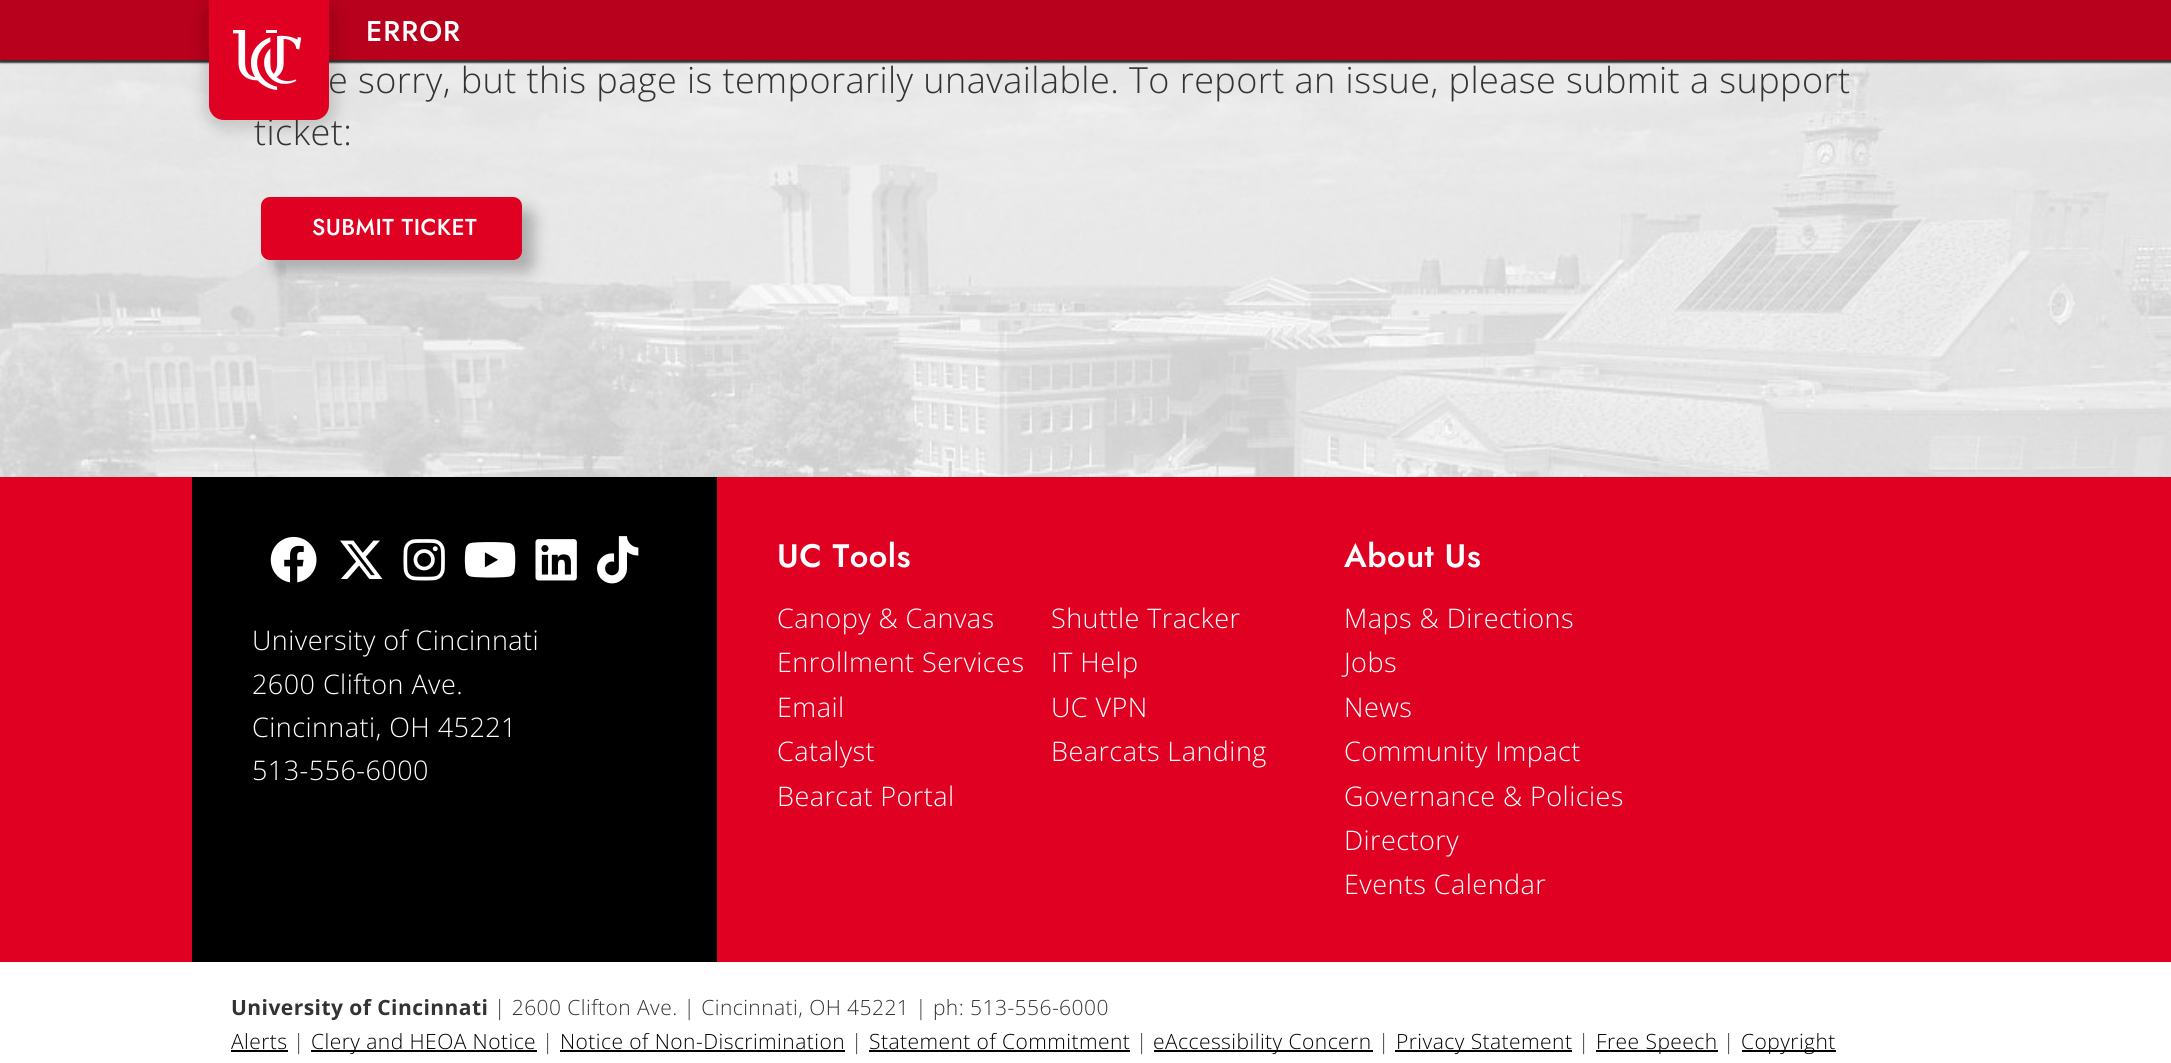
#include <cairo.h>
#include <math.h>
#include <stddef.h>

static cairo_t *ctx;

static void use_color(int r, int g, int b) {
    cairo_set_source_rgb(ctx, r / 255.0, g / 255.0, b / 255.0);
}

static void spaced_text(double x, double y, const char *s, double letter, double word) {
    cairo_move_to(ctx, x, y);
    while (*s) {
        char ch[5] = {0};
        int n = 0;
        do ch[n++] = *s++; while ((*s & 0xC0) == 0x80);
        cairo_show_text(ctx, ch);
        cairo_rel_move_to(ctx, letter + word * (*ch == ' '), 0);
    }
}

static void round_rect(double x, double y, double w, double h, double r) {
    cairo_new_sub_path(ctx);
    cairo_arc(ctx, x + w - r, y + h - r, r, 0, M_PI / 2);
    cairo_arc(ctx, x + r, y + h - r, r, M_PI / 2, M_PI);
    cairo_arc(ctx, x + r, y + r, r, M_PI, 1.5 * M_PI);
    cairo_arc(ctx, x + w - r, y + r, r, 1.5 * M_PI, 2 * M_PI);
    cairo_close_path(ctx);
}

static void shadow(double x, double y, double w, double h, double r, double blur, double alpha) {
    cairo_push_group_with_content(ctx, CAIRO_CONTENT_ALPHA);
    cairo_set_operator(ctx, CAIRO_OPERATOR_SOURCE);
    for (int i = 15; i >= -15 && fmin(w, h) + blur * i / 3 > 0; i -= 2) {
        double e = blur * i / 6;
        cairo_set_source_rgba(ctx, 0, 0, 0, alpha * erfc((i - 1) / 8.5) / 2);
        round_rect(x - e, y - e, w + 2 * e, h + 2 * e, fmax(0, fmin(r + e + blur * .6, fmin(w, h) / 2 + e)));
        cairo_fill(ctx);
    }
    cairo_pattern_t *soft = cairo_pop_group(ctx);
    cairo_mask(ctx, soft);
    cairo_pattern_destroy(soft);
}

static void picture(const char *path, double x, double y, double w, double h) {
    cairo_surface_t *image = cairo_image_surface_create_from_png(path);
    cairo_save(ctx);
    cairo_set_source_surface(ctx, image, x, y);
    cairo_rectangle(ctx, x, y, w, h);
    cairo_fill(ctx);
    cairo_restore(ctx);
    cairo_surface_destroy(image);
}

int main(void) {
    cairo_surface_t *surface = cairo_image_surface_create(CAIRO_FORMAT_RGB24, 2171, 1063);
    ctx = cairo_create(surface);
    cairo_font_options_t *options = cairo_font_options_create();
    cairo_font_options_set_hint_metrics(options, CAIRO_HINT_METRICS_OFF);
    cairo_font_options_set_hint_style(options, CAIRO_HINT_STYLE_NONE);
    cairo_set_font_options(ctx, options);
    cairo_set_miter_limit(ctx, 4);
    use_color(255, 255, 255);
    cairo_paint(ctx);
    picture("img2.png", 0, 60, 2171, 417);
    use_color(51, 51, 51);
    shadow(0, 2, 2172, 60, 0, 1, 1);
    shadow(0, 2, 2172, 60, 0, 1, 1);
    shadow(0, 2, 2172, 60, 0, 1, 1);
    use_color(184, 1, 28);
    cairo_rectangle(ctx, 0, 0, 2171, 60);
    cairo_fill(ctx);
    use_color(0, 0, 0);
    shadow(204, -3, 132, 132, 21, 7.5, 0.15);
    cairo_select_font_face(ctx, "Open Sans Light", CAIRO_FONT_SLANT_NORMAL, CAIRO_FONT_WEIGHT_NORMAL);
    cairo_set_font_size(ctx, 36);
    use_color(51, 51, 51);
    spaced_text(254, 145, "ticket:", 0.45, 0);
    use_color(224, 1, 34);
    cairo_new_path(ctx);
    cairo_move_to(ctx, 209, 0);
    cairo_line_to(ctx, 329, 0);
    cairo_line_to(ctx, 329, 105);
    cairo_curve_to(ctx, 329, 113.5, 322.5, 120, 314, 120);
    cairo_line_to(ctx, 224, 120);
    cairo_curve_to(ctx, 215.5, 120, 209, 113.5, 209, 105);
    cairo_close_path(ctx);
    cairo_fill(ctx);
    picture("img1.png", 233, 30, 69, 60);
    cairo_select_font_face(ctx, "Jost Medium", CAIRO_FONT_SLANT_NORMAL, CAIRO_FONT_WEIGHT_NORMAL);
    cairo_set_font_size(ctx, 28.5);
    use_color(255, 255, 255);
    spaced_text(366, 41, "ERROR", 1, 0);
    cairo_select_font_face(ctx, "Open Sans Light", CAIRO_FONT_SLANT_NORMAL, CAIRO_FONT_WEIGHT_NORMAL);
    cairo_set_font_size(ctx, 36);
    use_color(51, 51, 51);
    spaced_text(328, 93, "e sorry, but this page is temporarily unavailable. To report an issue, please submit a support", 0.45, 0);
    use_color(0, 0, 0);
    shadow(273, 209, 261, 63, 9, 7.5, 0.25);
    use_color(224, 1, 34);
    round_rect(262.5, 198.5, 258, 60, 7.5);
    cairo_fill_preserve(ctx);
    cairo_set_line_width(ctx, 3);
    cairo_stroke(ctx);
    cairo_select_font_face(ctx, "Jost Medium", CAIRO_FONT_SLANT_NORMAL, CAIRO_FONT_WEIGHT_NORMAL);
    cairo_set_font_size(ctx, 23);
    use_color(255, 255, 255);
    spaced_text(312, 235, "SUBMIT TICKET", 0.45, 0);
    use_color(224, 1, 34);
    cairo_rectangle(ctx, 0, 477, 2171, 485);
    cairo_fill(ctx);
    use_color(0, 0, 0);
    cairo_rectangle(ctx, 192, 477, 525, 485);
    cairo_fill(ctx);
    picture("img3.png", 270, 536, 47, 47);
    picture("img4.png", 340, 540, 43, 39);
    picture("img5.png", 403, 539, 42, 42);
    picture("img6.png", 464, 542, 52, 36);
    picture("img7.png", 535, 539, 42, 42);
    picture("img8.png", 597, 536, 42, 48);
    cairo_select_font_face(ctx, "Open Sans Light", CAIRO_FONT_SLANT_NORMAL, CAIRO_FONT_WEIGHT_NORMAL);
    cairo_set_font_size(ctx, 27);
    use_color(255, 255, 255);
    spaced_text(252, 650, "University of Cincinnati", 0.45, 0);
    spaced_text(252, 694, "2600 Clifton Ave.", 0.45, 0);
    spaced_text(252, 737, "Cincinnati, OH 45221", 0.45, 0);
    spaced_text(252, 780, "513-556-6000", 0.45, 0);
    cairo_select_font_face(ctx, "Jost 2 Medium", CAIRO_FONT_SLANT_NORMAL, CAIRO_FONT_WEIGHT_NORMAL);
    cairo_set_font_size(ctx, 32.5);
    spaced_text(777, 567, "UC Tools", 0.5, 0);
    cairo_select_font_face(ctx, "Open Sans Light", CAIRO_FONT_SLANT_NORMAL, CAIRO_FONT_WEIGHT_NORMAL);
    cairo_set_font_size(ctx, 27);
    spaced_text(777, 628, "Canopy & Canvas", 0.45, 0);
    spaced_text(1051, 628, "Shuttle Tracker", 0.45, 0);
    spaced_text(777, 672, "Enrollment Services", 0.45, 0);
    spaced_text(1051, 672, "IT Help", 0.45, 0);
    spaced_text(777, 717, "Email", 0.45, 0);
    spaced_text(1051, 717, "UC VPN", 0.45, 0);
    spaced_text(777, 761, "Catalyst", 0.45, 0);
    spaced_text(1051, 761, "Bearcats Landing", 0.45, 0);
    spaced_text(777, 806, "Bearcat Portal", 0.45, 0);
    cairo_select_font_face(ctx, "Jost 2 Medium", CAIRO_FONT_SLANT_NORMAL, CAIRO_FONT_WEIGHT_NORMAL);
    cairo_set_font_size(ctx, 32.5);
    spaced_text(1344, 567, "About Us", 0.5, 0);
    cairo_select_font_face(ctx, "Open Sans Light", CAIRO_FONT_SLANT_NORMAL, CAIRO_FONT_WEIGHT_NORMAL);
    cairo_set_font_size(ctx, 27);
    spaced_text(1344, 628, "Maps & Directions", 0.45, 0);
    spaced_text(1344, 672, "Jobs", 0.45, 0);
    spaced_text(1344, 717, "News", 0.45, 0);
    spaced_text(1344, 761, "Community Impact", 0.45, 0);
    spaced_text(1344, 806, "Governance & Policies", 0.45, 0);
    spaced_text(1344, 850, "Directory", 0.45, 0);
    spaced_text(1344, 894, "Events Calendar", 0.45, 0);
    cairo_select_font_face(ctx, "Open Sans", CAIRO_FONT_SLANT_NORMAL, CAIRO_FONT_WEIGHT_BOLD);
    cairo_set_font_size(ctx, 21);
    use_color(51, 51, 51);
    spaced_text(231, 1015, "University of Cincinnati", 0.45, 0);
    cairo_select_font_face(ctx, "Open Sans Light", CAIRO_FONT_SLANT_NORMAL, CAIRO_FONT_WEIGHT_NORMAL);
    spaced_text(494, 1015, "| 2600 Clifton Ave. | Cincinnati, OH 45221 | ph: 513-556-6000", 0.45, 0);
    use_color(0, 0, 0);
    spaced_text(231, 1049, "Alerts", 0.45, 0);
    cairo_rectangle(ctx, 231, 1050, 57, 2);
    cairo_fill(ctx);
    use_color(51, 51, 51);
    spaced_text(293, 1049, "|", 0.45, 0);
    use_color(0, 0, 0);
    cairo_rectangle(ctx, 311, 1050, 226, 2);
    cairo_fill(ctx);
    spaced_text(311, 1049, "Clery and HEOA Notice", 0.45, 0);
    use_color(51, 51, 51);
    spaced_text(542, 1049, "|", 0.45, 0);
    use_color(0, 0, 0);
    spaced_text(560, 1049, "Notice of Non-Discrimination", 0.45, 0);
    cairo_rectangle(ctx, 560, 1050, 285, 2);
    cairo_fill(ctx);
    use_color(51, 51, 51);
    spaced_text(851, 1049, "|", 0.45, 0);
    use_color(0, 0, 0);
    spaced_text(869, 1049, "Statement of Commitment", 0.45, 0);
    cairo_rectangle(ctx, 869, 1050, 261, 2);
    cairo_fill(ctx);
    use_color(51, 51, 51);
    spaced_text(1136, 1049, "|", 0.45, 0);
    use_color(0, 0, 0);
    cairo_rectangle(ctx, 1154, 1050, 219, 2);
    cairo_fill(ctx);
    spaced_text(1153, 1049, "eAccessibility Concern", 0.45, 0);
    use_color(51, 51, 51);
    spaced_text(1378, 1049, "|", 0.45, 0);
    use_color(0, 0, 0);
    cairo_rectangle(ctx, 1395, 1050, 177, 2);
    cairo_fill(ctx);
    spaced_text(1396, 1049, "Privacy Statement", 0.45, 0);
    use_color(51, 51, 51);
    spaced_text(1578, 1049, "|", 0.45, 0);
    use_color(0, 0, 0);
    cairo_rectangle(ctx, 1596, 1050, 122, 2);
    cairo_fill(ctx);
    spaced_text(1596, 1049, "Free Speech", 0.45, 0);
    use_color(51, 51, 51);
    spaced_text(1723, 1049, "|", 0.45, 0);
    use_color(0, 0, 0);
    cairo_rectangle(ctx, 1742, 1050, 94, 2);
    cairo_fill(ctx);
    spaced_text(1741, 1049, "Copyright", 0.45, 0);
    cairo_surface_write_to_png(surface, "result.png");
    cairo_font_options_destroy(options);
    cairo_destroy(ctx);
    cairo_surface_destroy(surface);
    return 0;
}
